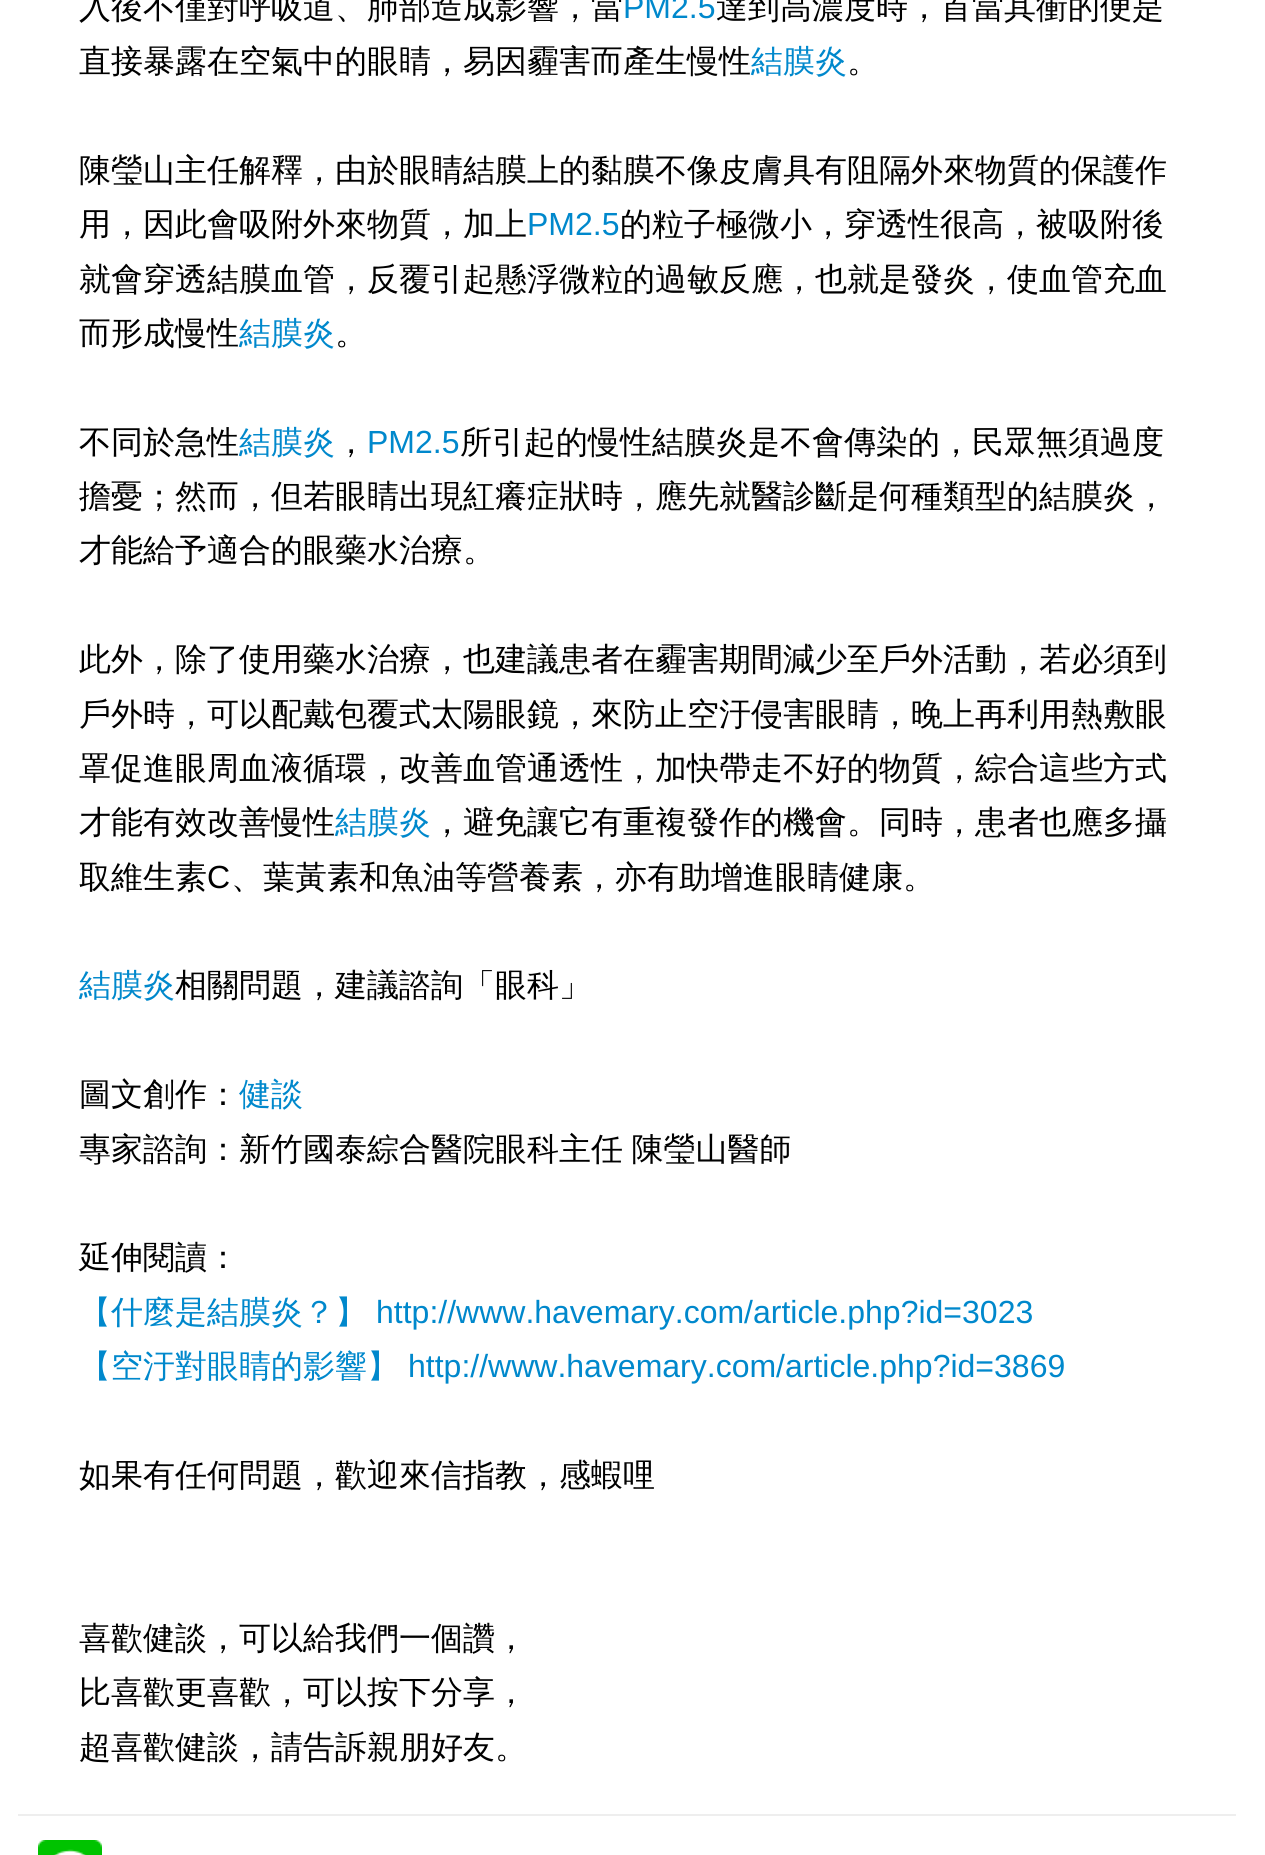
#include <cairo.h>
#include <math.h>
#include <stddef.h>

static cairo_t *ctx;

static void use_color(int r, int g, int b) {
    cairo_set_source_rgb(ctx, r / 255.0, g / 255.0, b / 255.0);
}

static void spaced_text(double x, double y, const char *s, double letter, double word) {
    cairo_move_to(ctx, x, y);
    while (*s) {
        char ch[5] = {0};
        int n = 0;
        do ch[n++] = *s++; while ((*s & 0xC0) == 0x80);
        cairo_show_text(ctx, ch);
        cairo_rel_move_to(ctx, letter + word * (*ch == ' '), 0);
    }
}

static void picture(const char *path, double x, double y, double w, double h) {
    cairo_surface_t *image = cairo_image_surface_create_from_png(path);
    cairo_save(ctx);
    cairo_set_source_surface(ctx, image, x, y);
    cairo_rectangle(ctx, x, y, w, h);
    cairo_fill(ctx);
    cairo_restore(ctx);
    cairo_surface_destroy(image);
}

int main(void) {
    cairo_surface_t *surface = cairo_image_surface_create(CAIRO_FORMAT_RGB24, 1265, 1855);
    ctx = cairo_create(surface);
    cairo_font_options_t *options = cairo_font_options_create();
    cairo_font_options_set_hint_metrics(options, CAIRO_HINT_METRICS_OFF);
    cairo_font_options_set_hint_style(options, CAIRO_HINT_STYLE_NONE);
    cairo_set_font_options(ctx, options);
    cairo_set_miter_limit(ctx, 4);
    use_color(255, 255, 255);
    cairo_paint(ctx);
    cairo_select_font_face(ctx, "WenQuanYi Zen Hei Medium", CAIRO_FONT_SLANT_NORMAL, CAIRO_FONT_WEIGHT_NORMAL);
    cairo_set_font_size(ctx, 32);
    use_color(0, 0, 0);
    cairo_move_to(ctx, 79, 18);
    cairo_show_text(ctx, "入後不僅對呼吸道、肺部造成影響，當");
    cairo_select_font_face(ctx, "Liberation Sans", CAIRO_FONT_SLANT_NORMAL, CAIRO_FONT_WEIGHT_NORMAL);
    use_color(0, 136, 204);
    cairo_move_to(ctx, 623, 18);
    cairo_show_text(ctx, "PM2.5");
    cairo_select_font_face(ctx, "WenQuanYi Zen Hei Medium", CAIRO_FONT_SLANT_NORMAL, CAIRO_FONT_WEIGHT_NORMAL);
    use_color(0, 0, 0);
    cairo_move_to(ctx, 716, 18);
    cairo_show_text(ctx, "達到高濃度時，首當其衝的便是");
    cairo_move_to(ctx, 79, 72);
    cairo_show_text(ctx, "直接暴露在空氣中的眼睛，易因霾害而產生慢性");
    use_color(0, 136, 204);
    cairo_move_to(ctx, 751, 72);
    cairo_show_text(ctx, "結膜炎");
    use_color(0, 0, 0);
    cairo_move_to(ctx, 847, 72);
    cairo_show_text(ctx, "。");
    cairo_move_to(ctx, 79, 181);
    cairo_show_text(ctx, "陳瑩山主任解釋，由於眼睛結膜上的黏膜不像皮膚具有阻隔外來物質的保護作");
    cairo_move_to(ctx, 79, 235);
    cairo_show_text(ctx, "用，因此會吸附外來物質，加上");
    cairo_select_font_face(ctx, "Liberation Sans", CAIRO_FONT_SLANT_NORMAL, CAIRO_FONT_WEIGHT_NORMAL);
    use_color(0, 136, 204);
    cairo_move_to(ctx, 527, 235);
    cairo_show_text(ctx, "PM2.5");
    cairo_select_font_face(ctx, "WenQuanYi Zen Hei Medium", CAIRO_FONT_SLANT_NORMAL, CAIRO_FONT_WEIGHT_NORMAL);
    use_color(0, 0, 0);
    cairo_move_to(ctx, 620, 235);
    cairo_show_text(ctx, "的粒子極微小，穿透性很高，被吸附後");
    cairo_move_to(ctx, 79, 290);
    cairo_show_text(ctx, "就會穿透結膜血管，反覆引起懸浮微粒的過敏反應，也就是發炎，使血管充血");
    cairo_move_to(ctx, 79, 344);
    cairo_show_text(ctx, "而形成慢性");
    use_color(0, 136, 204);
    cairo_move_to(ctx, 239, 344);
    cairo_show_text(ctx, "結膜炎");
    use_color(0, 0, 0);
    cairo_move_to(ctx, 335, 344);
    cairo_show_text(ctx, "。");
    cairo_move_to(ctx, 79, 453);
    cairo_show_text(ctx, "不同於急性");
    use_color(0, 136, 204);
    cairo_move_to(ctx, 239, 453);
    cairo_show_text(ctx, "結膜炎");
    use_color(0, 0, 0);
    cairo_move_to(ctx, 335, 453);
    cairo_show_text(ctx, "，");
    cairo_select_font_face(ctx, "Liberation Sans", CAIRO_FONT_SLANT_NORMAL, CAIRO_FONT_WEIGHT_NORMAL);
    use_color(0, 136, 204);
    cairo_move_to(ctx, 367, 453);
    cairo_show_text(ctx, "PM2.5");
    cairo_select_font_face(ctx, "WenQuanYi Zen Hei Medium", CAIRO_FONT_SLANT_NORMAL, CAIRO_FONT_WEIGHT_NORMAL);
    use_color(0, 0, 0);
    cairo_move_to(ctx, 460, 453);
    cairo_show_text(ctx, "所引起的慢性結膜炎是不會傳染的，民眾無須過度");
    cairo_move_to(ctx, 79, 507);
    cairo_show_text(ctx, "擔憂；然而，但若眼睛出現紅癢症狀時，應先就醫診斷是何種類型的結膜炎，");
    cairo_move_to(ctx, 79, 561);
    cairo_show_text(ctx, "才能給予適合的眼藥水治療。");
    cairo_move_to(ctx, 79, 670);
    cairo_show_text(ctx, "此外，除了使用藥水治療，也建議患者在霾害期間減少至戶外活動，若必須到");
    cairo_move_to(ctx, 79, 725);
    cairo_show_text(ctx, "戶外時，可以配戴包覆式太陽眼鏡，來防止空汙侵害眼睛，晚上再利用熱敷眼");
    cairo_move_to(ctx, 79, 779);
    cairo_show_text(ctx, "罩促進眼周血液循環，改善血管通透性，加快帶走不好的物質，綜合這些方式");
    cairo_move_to(ctx, 79, 833);
    cairo_show_text(ctx, "才能有效改善慢性");
    use_color(0, 136, 204);
    cairo_move_to(ctx, 335, 833);
    cairo_show_text(ctx, "結膜炎");
    use_color(0, 0, 0);
    cairo_move_to(ctx, 431, 833);
    cairo_show_text(ctx, "，避免讓它有重複發作的機會。同時，患者也應多攝");
    cairo_move_to(ctx, 79, 888);
    cairo_show_text(ctx, "取維生素");
    cairo_select_font_face(ctx, "Liberation Sans", CAIRO_FONT_SLANT_NORMAL, CAIRO_FONT_WEIGHT_NORMAL);
    cairo_move_to(ctx, 207, 888);
    cairo_show_text(ctx, "C");
    cairo_select_font_face(ctx, "WenQuanYi Zen Hei Medium", CAIRO_FONT_SLANT_NORMAL, CAIRO_FONT_WEIGHT_NORMAL);
    cairo_move_to(ctx, 231, 888);
    cairo_show_text(ctx, "、葉黃素和魚油等營養素，亦有助增進眼睛健康。");
    use_color(0, 136, 204);
    cairo_move_to(ctx, 79, 996);
    cairo_show_text(ctx, "結膜炎");
    use_color(0, 0, 0);
    cairo_move_to(ctx, 175, 996);
    cairo_show_text(ctx, "相關問題，建議諮詢「眼科」");
    cairo_move_to(ctx, 79, 1105);
    cairo_show_text(ctx, "圖文創作：");
    use_color(0, 136, 204);
    cairo_move_to(ctx, 239, 1105);
    cairo_show_text(ctx, "健談");
    use_color(0, 0, 0);
    spaced_text(79, 1160, "專家諮詢：新竹國泰綜合醫院眼科主任 陳瑩山醫師", 0, -1);
    cairo_move_to(ctx, 79, 1268);
    cairo_show_text(ctx, "延伸閱讀：");
    use_color(0, 136, 204);
    cairo_move_to(ctx, 79, 1323);
    cairo_show_text(ctx, "【什麼是結膜炎？】");
    cairo_select_font_face(ctx, "Liberation Sans", CAIRO_FONT_SLANT_NORMAL, CAIRO_FONT_WEIGHT_NORMAL);
    cairo_move_to(ctx, 376, 1323);
    cairo_show_text(ctx, "http://www.havemary.com/article.php?id=3023");
    cairo_select_font_face(ctx, "WenQuanYi Zen Hei Medium", CAIRO_FONT_SLANT_NORMAL, CAIRO_FONT_WEIGHT_NORMAL);
    cairo_move_to(ctx, 79, 1377);
    cairo_show_text(ctx, "【空汙對眼睛的影響】");
    cairo_select_font_face(ctx, "Liberation Sans", CAIRO_FONT_SLANT_NORMAL, CAIRO_FONT_WEIGHT_NORMAL);
    cairo_move_to(ctx, 408, 1377);
    cairo_show_text(ctx, "http://www.havemary.com/article.php?id=3869");
    cairo_select_font_face(ctx, "WenQuanYi Zen Hei Medium", CAIRO_FONT_SLANT_NORMAL, CAIRO_FONT_WEIGHT_NORMAL);
    use_color(0, 0, 0);
    cairo_move_to(ctx, 79, 1486);
    cairo_show_text(ctx, "如果有任何問題，歡迎來信指教，感蝦哩");
    cairo_move_to(ctx, 79, 1649);
    cairo_show_text(ctx, "喜歡健談，可以給我們一個讚，");
    cairo_move_to(ctx, 79, 1703);
    cairo_show_text(ctx, "比喜歡更喜歡，可以按下分享，");
    cairo_move_to(ctx, 79, 1758);
    cairo_show_text(ctx, "超喜歡健談，請告訴親朋好友。");
    use_color(238, 238, 238);
    cairo_rectangle(ctx, 18, 1814, 1218, 2);
    cairo_fill(ctx);
    picture("img1.png", 38, 1840, 64, 15);
    cairo_surface_write_to_png(surface, "result.png");
    cairo_font_options_destroy(options);
    cairo_destroy(ctx);
    cairo_surface_destroy(surface);
    return 0;
}
